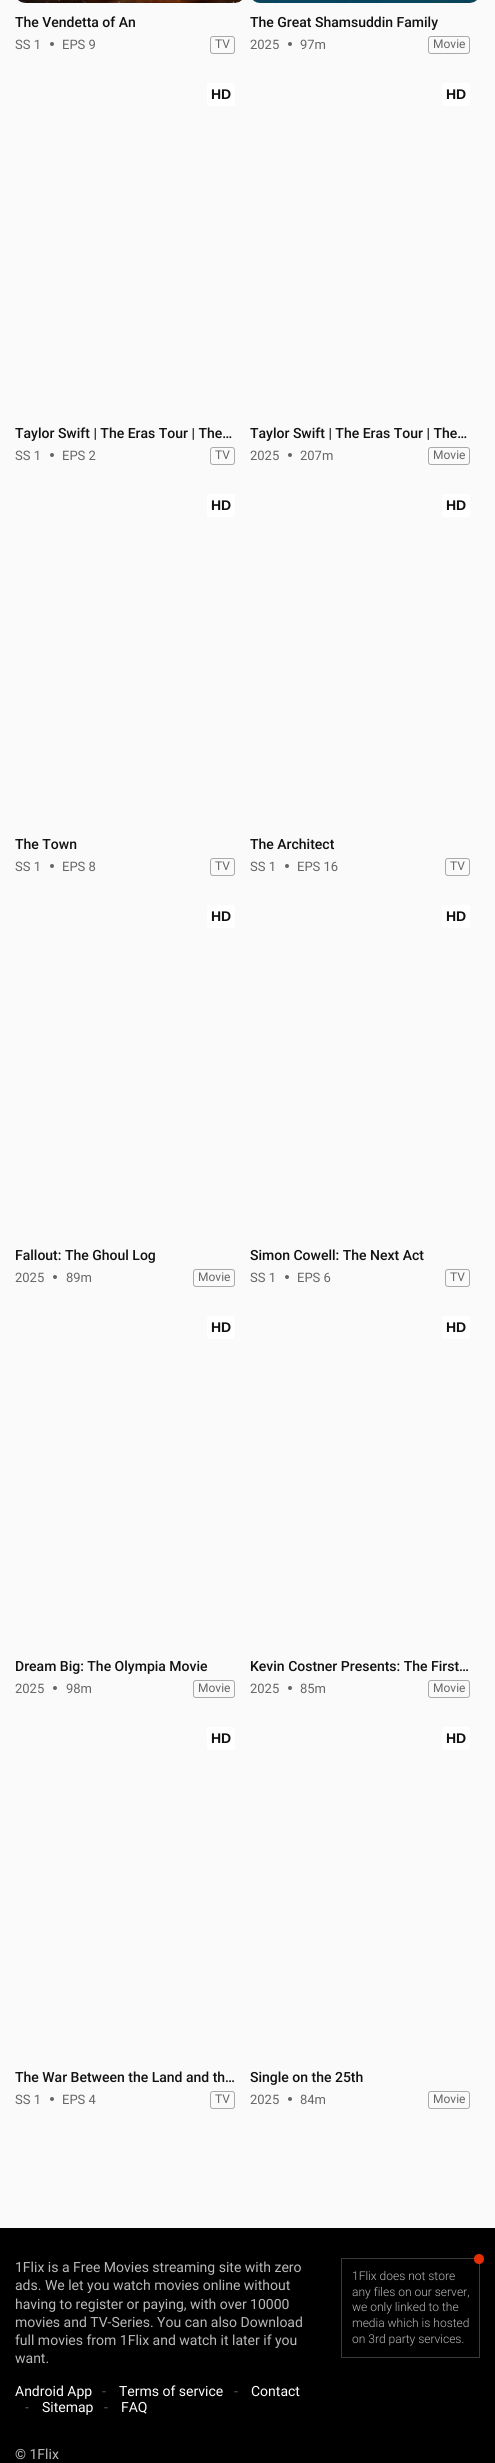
#include <cairo.h>
#include <math.h>
#include <stddef.h>

static cairo_t *ctx;

static void use_color(int r, int g, int b) {
    cairo_set_source_rgb(ctx, r / 255.0, g / 255.0, b / 255.0);
}

static void round_rect(double x, double y, double w, double h, double r) {
    cairo_new_sub_path(ctx);
    cairo_arc(ctx, x + w - r, y + h - r, r, 0, M_PI / 2);
    cairo_arc(ctx, x + r, y + h - r, r, M_PI / 2, M_PI);
    cairo_arc(ctx, x + r, y + r, r, M_PI, 1.5 * M_PI);
    cairo_arc(ctx, x + w - r, y + r, r, 1.5 * M_PI, 2 * M_PI);
    cairo_close_path(ctx);
}

static void picture(const char *path, double x, double y, double w, double h) {
    cairo_surface_t *image = cairo_image_surface_create_from_png(path);
    cairo_save(ctx);
    cairo_set_source_surface(ctx, image, x, y);
    cairo_rectangle(ctx, x, y, w, h);
    cairo_fill(ctx);
    cairo_restore(ctx);
    cairo_surface_destroy(image);
}

int main(void) {
    cairo_surface_t *surface = cairo_image_surface_create(CAIRO_FORMAT_RGB24, 495, 2463);
    ctx = cairo_create(surface);
    cairo_font_options_t *options = cairo_font_options_create();
    cairo_font_options_set_hint_metrics(options, CAIRO_HINT_METRICS_OFF);
    cairo_font_options_set_hint_style(options, CAIRO_HINT_STYLE_NONE);
    cairo_set_font_options(ctx, options);
    cairo_set_miter_limit(ctx, 4);
    use_color(250, 250, 250);
    cairo_paint(ctx);
    picture("img1.png", 18, 0, 224, 3);
    cairo_select_font_face(ctx, "Roboto Medium", CAIRO_FONT_SLANT_NORMAL, CAIRO_FONT_WEIGHT_NORMAL);
    cairo_set_font_size(ctx, 14);
    use_color(17, 17, 17);
    cairo_move_to(ctx, 15, 27);
    cairo_show_text(ctx, "The Vendetta of An");
    cairo_select_font_face(ctx, "Roboto", CAIRO_FONT_SLANT_NORMAL, CAIRO_FONT_WEIGHT_NORMAL);
    cairo_set_font_size(ctx, 13);
    use_color(102, 102, 102);
    cairo_move_to(ctx, 15, 49);
    cairo_show_text(ctx, "SS 1");
    cairo_new_path(ctx);
    cairo_arc(ctx, 52, 44, 2, 0, 2 * M_PI);
    cairo_fill(ctx);
    cairo_move_to(ctx, 62, 49);
    cairo_show_text(ctx, "EPS 9");
    round_rect(210.5, 36.5, 24, 17, 2.5);
    use_color(170, 170, 170);
    cairo_set_line_width(ctx, 1);
    cairo_stroke(ctx);
    cairo_set_font_size(ctx, 12);
    use_color(102, 102, 102);
    cairo_move_to(ctx, 215, 48);
    cairo_show_text(ctx, "TV");
    picture("img2.png", 253, 0, 224, 3);
    cairo_select_font_face(ctx, "Roboto Medium", CAIRO_FONT_SLANT_NORMAL, CAIRO_FONT_WEIGHT_NORMAL);
    cairo_set_font_size(ctx, 14);
    use_color(17, 17, 17);
    cairo_move_to(ctx, 250, 27);
    cairo_show_text(ctx, "The Great Shamsuddin Family");
    cairo_select_font_face(ctx, "Roboto", CAIRO_FONT_SLANT_NORMAL, CAIRO_FONT_WEIGHT_NORMAL);
    cairo_set_font_size(ctx, 13);
    use_color(102, 102, 102);
    cairo_move_to(ctx, 250, 49);
    cairo_show_text(ctx, "2025");
    cairo_new_path(ctx);
    cairo_arc(ctx, 290, 44, 2, 0, 2 * M_PI);
    cairo_fill(ctx);
    cairo_move_to(ctx, 300, 49);
    cairo_show_text(ctx, "97m");
    round_rect(428.5, 36.5, 41, 17, 2.5);
    use_color(170, 170, 170);
    cairo_stroke(ctx);
    cairo_set_font_size(ctx, 12);
    use_color(102, 102, 102);
    cairo_move_to(ctx, 433, 48);
    cairo_show_text(ctx, "Movie");
    use_color(255, 255, 255);
    round_rect(207, 83, 28, 23, 2);
    cairo_fill(ctx);
    cairo_select_font_face(ctx, "Liberation Sans", CAIRO_FONT_SLANT_NORMAL, CAIRO_FONT_WEIGHT_BOLD);
    cairo_set_font_size(ctx, 14);
    use_color(17, 17, 17);
    cairo_move_to(ctx, 211, 99);
    cairo_show_text(ctx, "HD");
    cairo_select_font_face(ctx, "Roboto Medium", CAIRO_FONT_SLANT_NORMAL, CAIRO_FONT_WEIGHT_NORMAL);
    cairo_move_to(ctx, 15, 438);
    cairo_show_text(ctx, "Taylor Swift | The Eras Tour | The…");
    cairo_select_font_face(ctx, "Roboto", CAIRO_FONT_SLANT_NORMAL, CAIRO_FONT_WEIGHT_NORMAL);
    cairo_set_font_size(ctx, 13);
    use_color(102, 102, 102);
    cairo_move_to(ctx, 15, 460);
    cairo_show_text(ctx, "SS 1");
    cairo_new_path(ctx);
    cairo_arc(ctx, 52, 455, 2, 0, 2 * M_PI);
    cairo_fill(ctx);
    cairo_move_to(ctx, 62, 460);
    cairo_show_text(ctx, "EPS 2");
    round_rect(210.5, 447.5, 24, 17, 2.5);
    use_color(170, 170, 170);
    cairo_stroke(ctx);
    cairo_set_font_size(ctx, 12);
    use_color(102, 102, 102);
    cairo_move_to(ctx, 215, 459);
    cairo_show_text(ctx, "TV");
    use_color(255, 255, 255);
    round_rect(442, 83, 28, 23, 2);
    cairo_fill(ctx);
    cairo_select_font_face(ctx, "Liberation Sans", CAIRO_FONT_SLANT_NORMAL, CAIRO_FONT_WEIGHT_BOLD);
    cairo_set_font_size(ctx, 14);
    use_color(17, 17, 17);
    cairo_move_to(ctx, 446, 99);
    cairo_show_text(ctx, "HD");
    cairo_select_font_face(ctx, "Roboto Medium", CAIRO_FONT_SLANT_NORMAL, CAIRO_FONT_WEIGHT_NORMAL);
    cairo_move_to(ctx, 250, 438);
    cairo_show_text(ctx, "Taylor Swift | The Eras Tour | The…");
    cairo_select_font_face(ctx, "Roboto", CAIRO_FONT_SLANT_NORMAL, CAIRO_FONT_WEIGHT_NORMAL);
    cairo_set_font_size(ctx, 13);
    use_color(102, 102, 102);
    cairo_move_to(ctx, 250, 460);
    cairo_show_text(ctx, "2025");
    cairo_new_path(ctx);
    cairo_arc(ctx, 290, 455, 2, 0, 2 * M_PI);
    cairo_fill(ctx);
    cairo_move_to(ctx, 300, 460);
    cairo_show_text(ctx, "207m");
    round_rect(428.5, 447.5, 41, 17, 2.5);
    use_color(170, 170, 170);
    cairo_stroke(ctx);
    cairo_set_font_size(ctx, 12);
    use_color(102, 102, 102);
    cairo_move_to(ctx, 433, 459);
    cairo_show_text(ctx, "Movie");
    use_color(255, 255, 255);
    round_rect(207, 494, 28, 23, 2);
    cairo_fill(ctx);
    cairo_select_font_face(ctx, "Liberation Sans", CAIRO_FONT_SLANT_NORMAL, CAIRO_FONT_WEIGHT_BOLD);
    cairo_set_font_size(ctx, 14);
    use_color(17, 17, 17);
    cairo_move_to(ctx, 211, 510);
    cairo_show_text(ctx, "HD");
    cairo_select_font_face(ctx, "Roboto Medium", CAIRO_FONT_SLANT_NORMAL, CAIRO_FONT_WEIGHT_NORMAL);
    cairo_move_to(ctx, 15, 849);
    cairo_show_text(ctx, "The Town");
    cairo_select_font_face(ctx, "Roboto", CAIRO_FONT_SLANT_NORMAL, CAIRO_FONT_WEIGHT_NORMAL);
    cairo_set_font_size(ctx, 13);
    use_color(102, 102, 102);
    cairo_move_to(ctx, 15, 871);
    cairo_show_text(ctx, "SS 1");
    cairo_new_path(ctx);
    cairo_arc(ctx, 52, 866, 2, 0, 2 * M_PI);
    cairo_fill(ctx);
    cairo_move_to(ctx, 62, 871);
    cairo_show_text(ctx, "EPS 8");
    round_rect(210.5, 858.5, 24, 17, 2.5);
    use_color(170, 170, 170);
    cairo_stroke(ctx);
    cairo_set_font_size(ctx, 12);
    use_color(102, 102, 102);
    cairo_move_to(ctx, 215, 870);
    cairo_show_text(ctx, "TV");
    use_color(255, 255, 255);
    round_rect(442, 494, 28, 23, 2);
    cairo_fill(ctx);
    cairo_select_font_face(ctx, "Liberation Sans", CAIRO_FONT_SLANT_NORMAL, CAIRO_FONT_WEIGHT_BOLD);
    cairo_set_font_size(ctx, 14);
    use_color(17, 17, 17);
    cairo_move_to(ctx, 446, 510);
    cairo_show_text(ctx, "HD");
    cairo_select_font_face(ctx, "Roboto Medium", CAIRO_FONT_SLANT_NORMAL, CAIRO_FONT_WEIGHT_NORMAL);
    cairo_move_to(ctx, 250, 849);
    cairo_show_text(ctx, "The Architect");
    cairo_select_font_face(ctx, "Roboto", CAIRO_FONT_SLANT_NORMAL, CAIRO_FONT_WEIGHT_NORMAL);
    cairo_set_font_size(ctx, 13);
    use_color(102, 102, 102);
    cairo_move_to(ctx, 250, 871);
    cairo_show_text(ctx, "SS 1");
    cairo_new_path(ctx);
    cairo_arc(ctx, 287, 866, 2, 0, 2 * M_PI);
    cairo_fill(ctx);
    cairo_move_to(ctx, 297, 871);
    cairo_show_text(ctx, "EPS 16");
    round_rect(445.5, 858.5, 24, 17, 2.5);
    use_color(170, 170, 170);
    cairo_stroke(ctx);
    cairo_set_font_size(ctx, 12);
    use_color(102, 102, 102);
    cairo_move_to(ctx, 450, 870);
    cairo_show_text(ctx, "TV");
    use_color(255, 255, 255);
    round_rect(207, 905, 28, 23, 2);
    cairo_fill(ctx);
    cairo_select_font_face(ctx, "Liberation Sans", CAIRO_FONT_SLANT_NORMAL, CAIRO_FONT_WEIGHT_BOLD);
    cairo_set_font_size(ctx, 14);
    use_color(17, 17, 17);
    cairo_move_to(ctx, 211, 921);
    cairo_show_text(ctx, "HD");
    cairo_select_font_face(ctx, "Roboto Medium", CAIRO_FONT_SLANT_NORMAL, CAIRO_FONT_WEIGHT_NORMAL);
    cairo_move_to(ctx, 15, 1260);
    cairo_show_text(ctx, "Fallout: The Ghoul Log");
    cairo_select_font_face(ctx, "Roboto", CAIRO_FONT_SLANT_NORMAL, CAIRO_FONT_WEIGHT_NORMAL);
    cairo_set_font_size(ctx, 13);
    use_color(102, 102, 102);
    cairo_move_to(ctx, 15, 1282);
    cairo_show_text(ctx, "2025");
    cairo_new_path(ctx);
    cairo_arc(ctx, 55, 1277, 2, 0, 2 * M_PI);
    cairo_fill(ctx);
    cairo_move_to(ctx, 66, 1282);
    cairo_show_text(ctx, "89m");
    round_rect(193.5, 1269.5, 41, 17, 2.5);
    use_color(170, 170, 170);
    cairo_stroke(ctx);
    cairo_set_font_size(ctx, 12);
    use_color(102, 102, 102);
    cairo_move_to(ctx, 198, 1281);
    cairo_show_text(ctx, "Movie");
    use_color(255, 255, 255);
    round_rect(442, 905, 28, 23, 2);
    cairo_fill(ctx);
    cairo_select_font_face(ctx, "Liberation Sans", CAIRO_FONT_SLANT_NORMAL, CAIRO_FONT_WEIGHT_BOLD);
    cairo_set_font_size(ctx, 14);
    use_color(17, 17, 17);
    cairo_move_to(ctx, 446, 921);
    cairo_show_text(ctx, "HD");
    cairo_select_font_face(ctx, "Roboto Medium", CAIRO_FONT_SLANT_NORMAL, CAIRO_FONT_WEIGHT_NORMAL);
    cairo_move_to(ctx, 250, 1260);
    cairo_show_text(ctx, "Simon Cowell: The Next Act");
    cairo_select_font_face(ctx, "Roboto", CAIRO_FONT_SLANT_NORMAL, CAIRO_FONT_WEIGHT_NORMAL);
    cairo_set_font_size(ctx, 13);
    use_color(102, 102, 102);
    cairo_move_to(ctx, 250, 1282);
    cairo_show_text(ctx, "SS 1");
    cairo_new_path(ctx);
    cairo_arc(ctx, 287, 1277, 2, 0, 2 * M_PI);
    cairo_fill(ctx);
    cairo_move_to(ctx, 297, 1282);
    cairo_show_text(ctx, "EPS 6");
    round_rect(445.5, 1269.5, 24, 17, 2.5);
    use_color(170, 170, 170);
    cairo_stroke(ctx);
    cairo_set_font_size(ctx, 12);
    use_color(102, 102, 102);
    cairo_move_to(ctx, 450, 1281);
    cairo_show_text(ctx, "TV");
    use_color(255, 255, 255);
    round_rect(207, 1316, 28, 23, 2);
    cairo_fill(ctx);
    cairo_select_font_face(ctx, "Liberation Sans", CAIRO_FONT_SLANT_NORMAL, CAIRO_FONT_WEIGHT_BOLD);
    cairo_set_font_size(ctx, 14);
    use_color(17, 17, 17);
    cairo_move_to(ctx, 211, 1332);
    cairo_show_text(ctx, "HD");
    cairo_select_font_face(ctx, "Roboto Medium", CAIRO_FONT_SLANT_NORMAL, CAIRO_FONT_WEIGHT_NORMAL);
    cairo_move_to(ctx, 15, 1671);
    cairo_show_text(ctx, "Dream Big: The Olympia Movie");
    cairo_select_font_face(ctx, "Roboto", CAIRO_FONT_SLANT_NORMAL, CAIRO_FONT_WEIGHT_NORMAL);
    cairo_set_font_size(ctx, 13);
    use_color(102, 102, 102);
    cairo_move_to(ctx, 15, 1693);
    cairo_show_text(ctx, "2025");
    cairo_new_path(ctx);
    cairo_arc(ctx, 55, 1688, 2, 0, 2 * M_PI);
    cairo_fill(ctx);
    cairo_move_to(ctx, 66, 1693);
    cairo_show_text(ctx, "98m");
    round_rect(193.5, 1680.5, 41, 17, 2.5);
    use_color(170, 170, 170);
    cairo_stroke(ctx);
    cairo_set_font_size(ctx, 12);
    use_color(102, 102, 102);
    cairo_move_to(ctx, 198, 1692);
    cairo_show_text(ctx, "Movie");
    use_color(255, 255, 255);
    round_rect(442, 1316, 28, 23, 2);
    cairo_fill(ctx);
    cairo_select_font_face(ctx, "Liberation Sans", CAIRO_FONT_SLANT_NORMAL, CAIRO_FONT_WEIGHT_BOLD);
    cairo_set_font_size(ctx, 14);
    use_color(17, 17, 17);
    cairo_move_to(ctx, 446, 1332);
    cairo_show_text(ctx, "HD");
    cairo_select_font_face(ctx, "Roboto Medium", CAIRO_FONT_SLANT_NORMAL, CAIRO_FONT_WEIGHT_NORMAL);
    cairo_move_to(ctx, 250, 1671);
    cairo_show_text(ctx, "Kevin Costner Presents: The First…");
    cairo_select_font_face(ctx, "Roboto", CAIRO_FONT_SLANT_NORMAL, CAIRO_FONT_WEIGHT_NORMAL);
    cairo_set_font_size(ctx, 13);
    use_color(102, 102, 102);
    cairo_move_to(ctx, 250, 1693);
    cairo_show_text(ctx, "2025");
    cairo_new_path(ctx);
    cairo_arc(ctx, 290, 1688, 2, 0, 2 * M_PI);
    cairo_fill(ctx);
    cairo_move_to(ctx, 300, 1693);
    cairo_show_text(ctx, "85m");
    round_rect(428.5, 1680.5, 41, 17, 2.5);
    use_color(170, 170, 170);
    cairo_stroke(ctx);
    cairo_set_font_size(ctx, 12);
    use_color(102, 102, 102);
    cairo_move_to(ctx, 433, 1692);
    cairo_show_text(ctx, "Movie");
    use_color(255, 255, 255);
    round_rect(207, 1727, 28, 23, 2);
    cairo_fill(ctx);
    cairo_select_font_face(ctx, "Liberation Sans", CAIRO_FONT_SLANT_NORMAL, CAIRO_FONT_WEIGHT_BOLD);
    cairo_set_font_size(ctx, 14);
    use_color(17, 17, 17);
    cairo_move_to(ctx, 211, 1743);
    cairo_show_text(ctx, "HD");
    cairo_select_font_face(ctx, "Roboto Medium", CAIRO_FONT_SLANT_NORMAL, CAIRO_FONT_WEIGHT_NORMAL);
    cairo_move_to(ctx, 15, 2082);
    cairo_show_text(ctx, "The War Between the Land and th…");
    cairo_select_font_face(ctx, "Roboto", CAIRO_FONT_SLANT_NORMAL, CAIRO_FONT_WEIGHT_NORMAL);
    cairo_set_font_size(ctx, 13);
    use_color(102, 102, 102);
    cairo_move_to(ctx, 15, 2104);
    cairo_show_text(ctx, "SS 1");
    cairo_new_path(ctx);
    cairo_arc(ctx, 52, 2099, 2, 0, 2 * M_PI);
    cairo_fill(ctx);
    cairo_move_to(ctx, 62, 2104);
    cairo_show_text(ctx, "EPS 4");
    round_rect(210.5, 2091.5, 24, 17, 2.5);
    use_color(170, 170, 170);
    cairo_stroke(ctx);
    cairo_set_font_size(ctx, 12);
    use_color(102, 102, 102);
    cairo_move_to(ctx, 215, 2103);
    cairo_show_text(ctx, "TV");
    use_color(255, 255, 255);
    round_rect(442, 1727, 28, 23, 2);
    cairo_fill(ctx);
    cairo_select_font_face(ctx, "Liberation Sans", CAIRO_FONT_SLANT_NORMAL, CAIRO_FONT_WEIGHT_BOLD);
    cairo_set_font_size(ctx, 14);
    use_color(17, 17, 17);
    cairo_move_to(ctx, 446, 1743);
    cairo_show_text(ctx, "HD");
    cairo_select_font_face(ctx, "Roboto Medium", CAIRO_FONT_SLANT_NORMAL, CAIRO_FONT_WEIGHT_NORMAL);
    cairo_move_to(ctx, 250, 2082);
    cairo_show_text(ctx, "Single on the 25th");
    cairo_select_font_face(ctx, "Roboto", CAIRO_FONT_SLANT_NORMAL, CAIRO_FONT_WEIGHT_NORMAL);
    cairo_set_font_size(ctx, 13);
    use_color(102, 102, 102);
    cairo_move_to(ctx, 250, 2104);
    cairo_show_text(ctx, "2025");
    cairo_new_path(ctx);
    cairo_arc(ctx, 290, 2099, 2, 0, 2 * M_PI);
    cairo_fill(ctx);
    cairo_move_to(ctx, 300, 2104);
    cairo_show_text(ctx, "84m");
    round_rect(428.5, 2091.5, 41, 17, 2.5);
    use_color(170, 170, 170);
    cairo_stroke(ctx);
    cairo_set_font_size(ctx, 12);
    use_color(102, 102, 102);
    cairo_move_to(ctx, 433, 2103);
    cairo_show_text(ctx, "Movie");
    use_color(0, 0, 0);
    cairo_rectangle(ctx, 0, 2228, 495, 235);
    cairo_fill(ctx);
    cairo_set_font_size(ctx, 14);
    use_color(185, 185, 185);
    cairo_move_to(ctx, 15, 2272);
    cairo_show_text(ctx, "1Flix is a Free Movies streaming site with zero");
    cairo_move_to(ctx, 15, 2290);
    cairo_show_text(ctx, "ads. We let you watch movies online without");
    cairo_move_to(ctx, 15, 2309);
    cairo_show_text(ctx, "having to register or paying, with over 10000");
    cairo_move_to(ctx, 15, 2327);
    cairo_show_text(ctx, "movies and TV-Series. You can also Download");
    cairo_move_to(ctx, 15, 2345);
    cairo_show_text(ctx, "full movies from 1Flix and watch it later if you");
    cairo_move_to(ctx, 15, 2363);
    cairo_show_text(ctx, "want.");
    use_color(255, 255, 255);
    cairo_move_to(ctx, 15, 2396);
    cairo_show_text(ctx, "Android App");
    use_color(93, 93, 93);
    cairo_move_to(ctx, 102, 2396);
    cairo_show_text(ctx, "-");
    use_color(255, 255, 255);
    cairo_move_to(ctx, 119, 2396);
    cairo_show_text(ctx, "Terms of service");
    use_color(93, 93, 93);
    cairo_move_to(ctx, 234, 2396);
    cairo_show_text(ctx, "-");
    use_color(255, 255, 255);
    cairo_move_to(ctx, 251, 2396);
    cairo_show_text(ctx, "Contact");
    use_color(93, 93, 93);
    cairo_move_to(ctx, 25, 2412);
    cairo_show_text(ctx, "-");
    use_color(255, 255, 255);
    cairo_move_to(ctx, 42, 2412);
    cairo_show_text(ctx, "Sitemap");
    use_color(93, 93, 93);
    cairo_move_to(ctx, 104, 2412);
    cairo_show_text(ctx, "-");
    use_color(255, 255, 255);
    cairo_move_to(ctx, 121, 2412);
    cairo_show_text(ctx, "FAQ");
    cairo_rectangle(ctx, 341.5, 2258.5, 138, 99);
    use_color(57, 57, 57);
    cairo_stroke(ctx);
    use_color(230, 46, 5);
    cairo_arc(ctx, 479, 2259, 5, 0, 2 * M_PI);
    cairo_fill(ctx);
    cairo_select_font_face(ctx, "Roboto Light", CAIRO_FONT_SLANT_NORMAL, CAIRO_FONT_WEIGHT_NORMAL);
    cairo_set_font_size(ctx, 12);
    use_color(185, 185, 185);
    cairo_move_to(ctx, 352, 2280);
    cairo_show_text(ctx, "1Flix does not store");
    cairo_move_to(ctx, 352, 2296);
    cairo_show_text(ctx, "any files on our server,");
    cairo_move_to(ctx, 352, 2311);
    cairo_show_text(ctx, "we only linked to the");
    cairo_move_to(ctx, 352, 2327);
    cairo_show_text(ctx, "media which is hosted");
    cairo_move_to(ctx, 352, 2343);
    cairo_show_text(ctx, "on 3rd party services.");
    cairo_select_font_face(ctx, "Roboto", CAIRO_FONT_SLANT_NORMAL, CAIRO_FONT_WEIGHT_NORMAL);
    cairo_set_font_size(ctx, 14);
    cairo_move_to(ctx, 15, 2459);
    cairo_show_text(ctx, "© 1Flix");
    cairo_surface_write_to_png(surface, "result.png");
    cairo_font_options_destroy(options);
    cairo_destroy(ctx);
    cairo_surface_destroy(surface);
    return 0;
}
